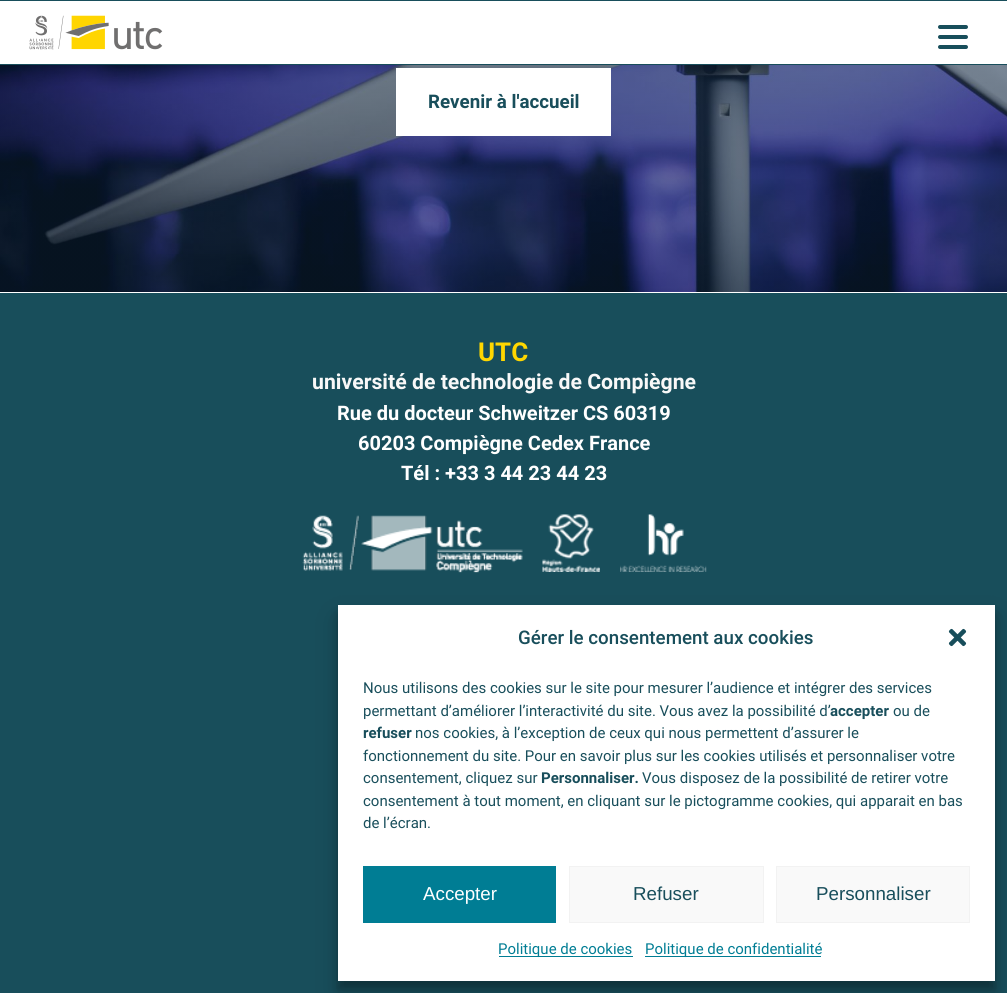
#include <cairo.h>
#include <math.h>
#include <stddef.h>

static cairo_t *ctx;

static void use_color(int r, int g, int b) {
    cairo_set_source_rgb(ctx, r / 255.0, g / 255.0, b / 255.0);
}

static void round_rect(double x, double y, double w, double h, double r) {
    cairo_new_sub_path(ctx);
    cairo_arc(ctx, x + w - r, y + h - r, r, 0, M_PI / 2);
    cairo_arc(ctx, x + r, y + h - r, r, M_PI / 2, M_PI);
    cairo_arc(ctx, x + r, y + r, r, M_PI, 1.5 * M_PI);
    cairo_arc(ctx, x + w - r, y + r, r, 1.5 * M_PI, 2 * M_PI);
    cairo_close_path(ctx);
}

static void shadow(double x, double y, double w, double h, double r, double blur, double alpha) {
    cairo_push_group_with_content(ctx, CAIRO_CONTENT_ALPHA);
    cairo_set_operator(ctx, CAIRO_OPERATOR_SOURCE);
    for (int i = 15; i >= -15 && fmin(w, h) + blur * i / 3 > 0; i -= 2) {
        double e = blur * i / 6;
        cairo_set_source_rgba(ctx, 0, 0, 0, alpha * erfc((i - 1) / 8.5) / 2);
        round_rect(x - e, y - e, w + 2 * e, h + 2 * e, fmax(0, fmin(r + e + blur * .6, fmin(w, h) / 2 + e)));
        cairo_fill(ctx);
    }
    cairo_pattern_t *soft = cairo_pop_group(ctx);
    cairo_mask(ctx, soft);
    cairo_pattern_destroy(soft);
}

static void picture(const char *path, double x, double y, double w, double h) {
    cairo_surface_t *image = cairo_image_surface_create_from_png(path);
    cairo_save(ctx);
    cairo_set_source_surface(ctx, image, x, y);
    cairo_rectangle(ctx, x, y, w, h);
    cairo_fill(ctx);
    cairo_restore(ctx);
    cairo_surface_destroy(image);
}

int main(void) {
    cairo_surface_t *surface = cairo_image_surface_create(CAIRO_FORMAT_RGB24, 1007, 993);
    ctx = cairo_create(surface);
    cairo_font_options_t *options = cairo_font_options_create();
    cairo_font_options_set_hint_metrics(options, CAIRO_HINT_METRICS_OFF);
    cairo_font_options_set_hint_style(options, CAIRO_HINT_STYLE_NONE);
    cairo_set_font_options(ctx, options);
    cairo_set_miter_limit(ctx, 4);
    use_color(255, 255, 255);
    cairo_paint(ctx);
    use_color(24, 78, 91);
    cairo_rectangle(ctx, 0, 0, 1007, 1);
    cairo_fill(ctx);
    cairo_rectangle(ctx, 0, 64, 1007, 1);
    cairo_fill(ctx);
    picture("img1.png", 29, 15, 134, 35);
    round_rect(938, 25, 30, 4, 2);
    cairo_fill(ctx);
    round_rect(938, 35, 30, 4, 2);
    cairo_fill(ctx);
    round_rect(938, 45, 30, 4, 2);
    cairo_fill(ctx);
    picture("img2.png", 0, 65, 1007, 227);
    use_color(255, 255, 255);
    cairo_rectangle(ctx, 396, 68, 215, 68);
    cairo_fill(ctx);
    cairo_select_font_face(ctx, "Roboto", CAIRO_FONT_SLANT_NORMAL, CAIRO_FONT_WEIGHT_BOLD);
    cairo_set_font_size(ctx, 18.75);
    use_color(24, 78, 91);
    cairo_move_to(ctx, 428, 108);
    cairo_show_text(ctx, "Revenir à l'accueil");
    cairo_rectangle(ctx, 0, 293, 1007, 700);
    cairo_fill(ctx);
    cairo_set_font_size(ctx, 26);
    use_color(255, 215, 0);
    cairo_move_to(ctx, 478, 361);
    cairo_show_text(ctx, "UTC");
    cairo_set_font_size(ctx, 21.25);
    use_color(248, 248, 248);
    cairo_move_to(ctx, 312, 389);
    cairo_show_text(ctx, "université de technologie de Compiègne");
    cairo_set_font_size(ctx, 20);
    use_color(255, 255, 255);
    cairo_move_to(ctx, 337, 420);
    cairo_show_text(ctx, "Rue du docteur Schweitzer CS 60319");
    cairo_move_to(ctx, 358, 450);
    cairo_show_text(ctx, "60203 Compiègne Cedex France");
    cairo_move_to(ctx, 401, 480);
    cairo_show_text(ctx, "Tél : +33 3 44 23 44 23");
    picture("img3.png", 302, 515, 221, 58);
    picture("img4.png", 542, 514, 58, 58);
    picture("img5.png", 620, 514, 87, 58);
    use_color(0, 0, 0);
    shadow(338, 613, 657, 376, 0, 4, 0.23);
    shadow(338, 618, 657, 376, 0, 12.5, 0.19);
    use_color(255, 255, 255);
    cairo_rectangle(ctx, 338, 605, 657, 376);
    cairo_fill(ctx);
    cairo_select_font_face(ctx, "Roboto Medium", CAIRO_FONT_SLANT_NORMAL, CAIRO_FONT_WEIGHT_NORMAL);
    cairo_set_font_size(ctx, 18.75);
    use_color(24, 78, 91);
    cairo_move_to(ctx, 518, 644);
    cairo_show_text(ctx, "Gérer le consentement aux cookies");
    picture("img6.png", 948, 628, 19, 19);
    cairo_select_font_face(ctx, "Roboto", CAIRO_FONT_SLANT_NORMAL, CAIRO_FONT_WEIGHT_NORMAL);
    cairo_set_font_size(ctx, 15);
    cairo_move_to(ctx, 363, 693);
    cairo_show_text(ctx, "Nous utilisons des cookies sur le site pour mesurer l’audience et intégrer des services");
    cairo_move_to(ctx, 363, 716);
    cairo_show_text(ctx, "permettant d’améliorer l’interactivité du site. Vous avez la possibilité d’");
    cairo_select_font_face(ctx, "Roboto", CAIRO_FONT_SLANT_NORMAL, CAIRO_FONT_WEIGHT_BOLD);
    cairo_move_to(ctx, 830, 716);
    cairo_show_text(ctx, "accepter");
    cairo_select_font_face(ctx, "Roboto", CAIRO_FONT_SLANT_NORMAL, CAIRO_FONT_WEIGHT_NORMAL);
    cairo_move_to(ctx, 893, 716);
    cairo_show_text(ctx, "ou de");
    cairo_select_font_face(ctx, "Roboto", CAIRO_FONT_SLANT_NORMAL, CAIRO_FONT_WEIGHT_BOLD);
    cairo_move_to(ctx, 363, 738);
    cairo_show_text(ctx, "refuser");
    cairo_select_font_face(ctx, "Roboto", CAIRO_FONT_SLANT_NORMAL, CAIRO_FONT_WEIGHT_NORMAL);
    cairo_move_to(ctx, 415, 738);
    cairo_show_text(ctx, "nos cookies, à l’exception de ceux qui nous permettent d’assurer le");
    cairo_move_to(ctx, 363, 761);
    cairo_show_text(ctx, "fonctionnement du site. Pour en savoir plus sur les cookies utilisés et personnaliser votre");
    cairo_move_to(ctx, 363, 783);
    cairo_show_text(ctx, "consentement, cliquez sur");
    cairo_select_font_face(ctx, "Roboto", CAIRO_FONT_SLANT_NORMAL, CAIRO_FONT_WEIGHT_BOLD);
    cairo_move_to(ctx, 541, 783);
    cairo_show_text(ctx, "Personnaliser.");
    cairo_select_font_face(ctx, "Roboto", CAIRO_FONT_SLANT_NORMAL, CAIRO_FONT_WEIGHT_NORMAL);
    cairo_move_to(ctx, 642, 783);
    cairo_show_text(ctx, "Vous disposez de la possibilité de retirer votre");
    cairo_move_to(ctx, 363, 806);
    cairo_show_text(ctx, "consentement à tout moment, en cliquant sur le pictogramme cookies, qui apparait en bas");
    cairo_move_to(ctx, 363, 828);
    cairo_show_text(ctx, "de l’écran.");
    use_color(0, 125, 148);
    cairo_rectangle(ctx, 363, 866, 193, 57);
    cairo_fill(ctx);
    cairo_select_font_face(ctx, "Liberation Sans", CAIRO_FONT_SLANT_NORMAL, CAIRO_FONT_WEIGHT_NORMAL);
    cairo_set_font_size(ctx, 18.75);
    use_color(255, 255, 255);
    cairo_move_to(ctx, 423, 900);
    cairo_show_text(ctx, "Accepter");
    use_color(249, 249, 249);
    cairo_rectangle(ctx, 569.5, 866.5, 194, 56);
    cairo_fill_preserve(ctx);
    use_color(242, 242, 242);
    cairo_set_line_width(ctx, 1);
    cairo_stroke(ctx);
    use_color(24, 78, 91);
    cairo_move_to(ctx, 633, 900);
    cairo_show_text(ctx, "Refuser");
    use_color(249, 249, 249);
    cairo_rectangle(ctx, 776.5, 866.5, 193, 56);
    cairo_fill_preserve(ctx);
    use_color(242, 242, 242);
    cairo_stroke(ctx);
    use_color(24, 78, 91);
    cairo_move_to(ctx, 816, 900);
    cairo_show_text(ctx, "Personnaliser");
    use_color(0, 125, 148);
    cairo_rectangle(ctx, 499, 956, 134, 1);
    cairo_fill(ctx);
    cairo_select_font_face(ctx, "Roboto", CAIRO_FONT_SLANT_NORMAL, CAIRO_FONT_WEIGHT_NORMAL);
    cairo_set_font_size(ctx, 15);
    cairo_move_to(ctx, 498, 954);
    cairo_show_text(ctx, "Politique de cookies");
    cairo_rectangle(ctx, 645, 956, 176, 1);
    cairo_fill(ctx);
    cairo_move_to(ctx, 645, 954);
    cairo_show_text(ctx, "Politique de confidentialité");
    cairo_surface_write_to_png(surface, "result.png");
    cairo_font_options_destroy(options);
    cairo_destroy(ctx);
    cairo_surface_destroy(surface);
    return 0;
}
